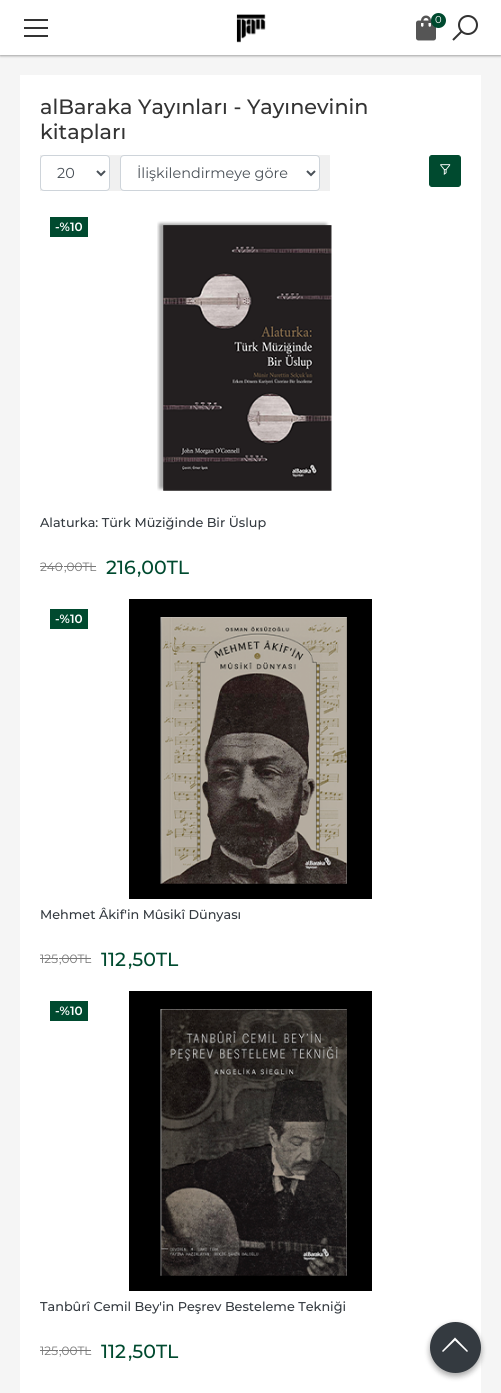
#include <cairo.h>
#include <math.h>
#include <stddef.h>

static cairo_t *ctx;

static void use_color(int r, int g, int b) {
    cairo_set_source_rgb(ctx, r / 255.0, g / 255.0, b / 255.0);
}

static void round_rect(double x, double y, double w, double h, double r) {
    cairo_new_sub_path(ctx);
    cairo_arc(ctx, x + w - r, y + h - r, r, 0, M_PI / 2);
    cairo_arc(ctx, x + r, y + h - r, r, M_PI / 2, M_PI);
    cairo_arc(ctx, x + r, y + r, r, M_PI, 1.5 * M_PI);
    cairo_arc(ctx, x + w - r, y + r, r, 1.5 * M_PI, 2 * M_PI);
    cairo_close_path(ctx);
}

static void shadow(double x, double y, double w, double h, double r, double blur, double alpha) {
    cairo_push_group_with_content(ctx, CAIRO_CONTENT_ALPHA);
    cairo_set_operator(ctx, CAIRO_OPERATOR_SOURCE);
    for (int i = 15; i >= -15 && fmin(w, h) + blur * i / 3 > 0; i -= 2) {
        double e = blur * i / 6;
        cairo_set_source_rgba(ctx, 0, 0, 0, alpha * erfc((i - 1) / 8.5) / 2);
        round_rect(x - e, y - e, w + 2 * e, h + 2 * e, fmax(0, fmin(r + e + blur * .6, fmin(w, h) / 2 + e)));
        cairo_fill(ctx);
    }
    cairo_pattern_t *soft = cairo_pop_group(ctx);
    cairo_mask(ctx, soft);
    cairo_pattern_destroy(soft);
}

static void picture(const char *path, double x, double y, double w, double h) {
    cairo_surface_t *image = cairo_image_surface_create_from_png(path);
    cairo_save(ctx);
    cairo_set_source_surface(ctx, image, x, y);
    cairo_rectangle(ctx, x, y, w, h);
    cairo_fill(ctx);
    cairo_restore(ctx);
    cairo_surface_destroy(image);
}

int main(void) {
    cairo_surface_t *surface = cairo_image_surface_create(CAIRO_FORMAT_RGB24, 501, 1393);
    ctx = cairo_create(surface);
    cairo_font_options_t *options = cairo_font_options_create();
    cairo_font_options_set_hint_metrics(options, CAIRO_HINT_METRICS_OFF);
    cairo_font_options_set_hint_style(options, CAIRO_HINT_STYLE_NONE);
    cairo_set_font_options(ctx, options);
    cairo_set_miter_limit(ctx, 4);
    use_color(245, 245, 245);
    cairo_paint(ctx);
    use_color(0, 0, 0);
    shadow(0, 1, 501, 55, 0, 1, 0.24);
    shadow(0, 1, 501, 55, 0, 1.5, 0.12);
    use_color(255, 255, 255);
    cairo_rectangle(ctx, 0, 0, 501, 55);
    cairo_fill(ctx);
    picture("img1.png", 24, 19, 24, 18);
    picture("img2.png", 236, 14, 30, 29);
    picture("img3.png", 452, 15, 26, 26);
    picture("img4.png", 416, 15, 20, 26);
    use_color(0, 74, 47);
    cairo_arc(ctx, 438.5, 20.5, 7.5, 0, 2 * M_PI);
    cairo_fill(ctx);
    cairo_select_font_face(ctx, "Montserrat", CAIRO_FONT_SLANT_NORMAL, CAIRO_FONT_WEIGHT_NORMAL);
    cairo_set_font_size(ctx, 10);
    use_color(255, 255, 255);
    cairo_move_to(ctx, 435, 23);
    cairo_show_text(ctx, "0");
    cairo_rectangle(ctx, 20, 75, 461, 1318);
    cairo_fill(ctx);
    cairo_select_font_face(ctx, "Montserrat Medium", CAIRO_FONT_SLANT_NORMAL, CAIRO_FONT_WEIGHT_NORMAL);
    cairo_set_font_size(ctx, 20.75);
    use_color(51, 51, 51);
    cairo_move_to(ctx, 40, 114);
    cairo_show_text(ctx, "alBaraka Yayınları - Yayınevinin");
    cairo_move_to(ctx, 40, 139);
    cairo_show_text(ctx, "kitapları");
    use_color(240, 240, 240);
    cairo_rectangle(ctx, 40, 155, 290, 36);
    cairo_fill(ctx);
    use_color(255, 255, 255);
    round_rect(40.5, 155.5, 69, 35, 3.5);
    cairo_fill_preserve(ctx);
    use_color(206, 212, 218);
    cairo_set_line_width(ctx, 1);
    cairo_stroke(ctx);
    cairo_new_path(ctx);
    cairo_move_to(ctx, 97, 171);
    cairo_line_to(ctx, 101, 175);
    cairo_line_to(ctx, 105, 171);
    use_color(73, 80, 87);
    cairo_set_line_width(ctx, 2);
    cairo_stroke(ctx);
    cairo_select_font_face(ctx, "Montserrat", CAIRO_FONT_SLANT_NORMAL, CAIRO_FONT_WEIGHT_NORMAL);
    cairo_set_font_size(ctx, 14.4);
    cairo_move_to(ctx, 57, 178);
    cairo_show_text(ctx, "20");
    use_color(255, 255, 255);
    round_rect(120.5, 155.5, 199, 35, 3.5);
    cairo_fill_preserve(ctx);
    use_color(206, 212, 218);
    cairo_set_line_width(ctx, 1);
    cairo_stroke(ctx);
    cairo_new_path(ctx);
    cairo_move_to(ctx, 307, 171);
    cairo_line_to(ctx, 311, 175);
    cairo_line_to(ctx, 315, 171);
    use_color(73, 80, 87);
    cairo_set_line_width(ctx, 2);
    cairo_stroke(ctx);
    cairo_move_to(ctx, 137, 178);
    cairo_show_text(ctx, "İlişkilendirmeye göre");
    use_color(0, 74, 47);
    round_rect(429.5, 155.5, 31, 31, 2.5);
    cairo_fill_preserve(ctx);
    cairo_set_line_width(ctx, 1);
    cairo_stroke(ctx);
    picture("img5.png", 440, 164, 11, 11);
    cairo_rectangle(ctx, 50, 217, 38, 20);
    cairo_fill(ctx);
    cairo_select_font_face(ctx, "Montserrat SemiBold", CAIRO_FONT_SLANT_NORMAL, CAIRO_FONT_WEIGHT_NORMAL);
    cairo_set_font_size(ctx, 12);
    use_color(255, 255, 255);
    cairo_move_to(ctx, 55, 231);
    cairo_show_text(ctx, "-%10");
    picture("img6.png", 157, 221, 175, 270);
    cairo_select_font_face(ctx, "Montserrat Medium", CAIRO_FONT_SLANT_NORMAL, CAIRO_FONT_WEIGHT_NORMAL);
    cairo_set_font_size(ctx, 12.8);
    use_color(52, 58, 64);
    cairo_move_to(ctx, 40, 527);
    cairo_show_text(ctx, "Alaturka: Türk Müziğinde Bir Üslup");
    cairo_select_font_face(ctx, "Montserrat", CAIRO_FONT_SLANT_NORMAL, CAIRO_FONT_WEIGHT_NORMAL);
    cairo_set_font_size(ctx, 12);
    use_color(119, 119, 119);
    cairo_move_to(ctx, 40, 571);
    cairo_show_text(ctx, "240");
    cairo_rectangle(ctx, 40, 566, 23, 1);
    cairo_fill(ctx);
    cairo_move_to(ctx, 64, 571);
    cairo_show_text(ctx, ",00TL");
    cairo_rectangle(ctx, 64, 566, 32, 1);
    cairo_fill(ctx);
    cairo_select_font_face(ctx, "Montserrat Medium", CAIRO_FONT_SLANT_NORMAL, CAIRO_FONT_WEIGHT_NORMAL);
    cairo_set_font_size(ctx, 19);
    use_color(0, 74, 47);
    cairo_move_to(ctx, 106, 574);
    cairo_show_text(ctx, "216");
    cairo_move_to(ctx, 137, 574);
    cairo_show_text(ctx, ",00TL");
    cairo_rectangle(ctx, 50, 609, 38, 20);
    cairo_fill(ctx);
    cairo_select_font_face(ctx, "Montserrat SemiBold", CAIRO_FONT_SLANT_NORMAL, CAIRO_FONT_WEIGHT_NORMAL);
    cairo_set_font_size(ctx, 12);
    use_color(255, 255, 255);
    cairo_move_to(ctx, 55, 623);
    cairo_show_text(ctx, "-%10");
    picture("img7.png", 129, 599, 243, 300);
    cairo_select_font_face(ctx, "Montserrat Medium", CAIRO_FONT_SLANT_NORMAL, CAIRO_FONT_WEIGHT_NORMAL);
    cairo_set_font_size(ctx, 12.8);
    use_color(52, 58, 64);
    cairo_move_to(ctx, 40, 919);
    cairo_show_text(ctx, "Mehmet Âkif'in Mûsikî Dünyası");
    cairo_select_font_face(ctx, "Montserrat", CAIRO_FONT_SLANT_NORMAL, CAIRO_FONT_WEIGHT_NORMAL);
    cairo_set_font_size(ctx, 12);
    use_color(119, 119, 119);
    cairo_move_to(ctx, 40, 963);
    cairo_show_text(ctx, "125");
    cairo_rectangle(ctx, 40, 958, 18, 1);
    cairo_fill(ctx);
    cairo_move_to(ctx, 59, 963);
    cairo_show_text(ctx, ",00TL");
    cairo_rectangle(ctx, 59, 958, 32, 1);
    cairo_fill(ctx);
    cairo_select_font_face(ctx, "Montserrat Medium", CAIRO_FONT_SLANT_NORMAL, CAIRO_FONT_WEIGHT_NORMAL);
    cairo_set_font_size(ctx, 19);
    use_color(0, 74, 47);
    cairo_move_to(ctx, 101, 966);
    cairo_show_text(ctx, "112");
    cairo_move_to(ctx, 128, 966);
    cairo_show_text(ctx, ",50TL");
    cairo_rectangle(ctx, 50, 1001, 38, 20);
    cairo_fill(ctx);
    cairo_select_font_face(ctx, "Montserrat SemiBold", CAIRO_FONT_SLANT_NORMAL, CAIRO_FONT_WEIGHT_NORMAL);
    cairo_set_font_size(ctx, 12);
    use_color(255, 255, 255);
    cairo_move_to(ctx, 55, 1015);
    cairo_show_text(ctx, "-%10");
    picture("img8.png", 129, 991, 243, 300);
    cairo_select_font_face(ctx, "Montserrat Medium", CAIRO_FONT_SLANT_NORMAL, CAIRO_FONT_WEIGHT_NORMAL);
    cairo_set_font_size(ctx, 12.8);
    use_color(52, 58, 64);
    cairo_move_to(ctx, 40, 1311);
    cairo_show_text(ctx, "Tanbûrî Cemil Bey'in Peşrev Besteleme Tekniği");
    cairo_select_font_face(ctx, "Montserrat", CAIRO_FONT_SLANT_NORMAL, CAIRO_FONT_WEIGHT_NORMAL);
    cairo_set_font_size(ctx, 12);
    use_color(119, 119, 119);
    cairo_move_to(ctx, 40, 1355);
    cairo_show_text(ctx, "125");
    cairo_rectangle(ctx, 40, 1350, 18, 1);
    cairo_fill(ctx);
    cairo_move_to(ctx, 59, 1355);
    cairo_show_text(ctx, ",00TL");
    cairo_rectangle(ctx, 59, 1350, 32, 1);
    cairo_fill(ctx);
    cairo_select_font_face(ctx, "Montserrat Medium", CAIRO_FONT_SLANT_NORMAL, CAIRO_FONT_WEIGHT_NORMAL);
    cairo_set_font_size(ctx, 19);
    use_color(0, 74, 47);
    cairo_move_to(ctx, 101, 1358);
    cairo_show_text(ctx, "112");
    cairo_move_to(ctx, 128, 1358);
    cairo_show_text(ctx, ",50TL");
    use_color(0, 0, 0);
    shadow(430, 1325, 51, 51, 25.5, 3, 0.23);
    shadow(430, 1325, 51, 51, 25.5, 3, 0.16);
    use_color(52, 58, 64);
    cairo_arc(ctx, 455.5, 1347.5, 25.5, 0, 2 * M_PI);
    cairo_fill(ctx);
    use_color(255, 255, 255);
    cairo_new_path(ctx);
    cairo_move_to(ctx, 455, 1337.5);
    cairo_line_to(ctx, 442, 1351);
    cairo_line_to(ctx, 443, 1352);
    cairo_line_to(ctx, 455, 1340.5);
    cairo_line_to(ctx, 467, 1352);
    cairo_line_to(ctx, 468, 1351);
    cairo_close_path(ctx);
    cairo_fill(ctx);
    cairo_surface_write_to_png(surface, "result.png");
    cairo_font_options_destroy(options);
    cairo_destroy(ctx);
    cairo_surface_destroy(surface);
    return 0;
}
